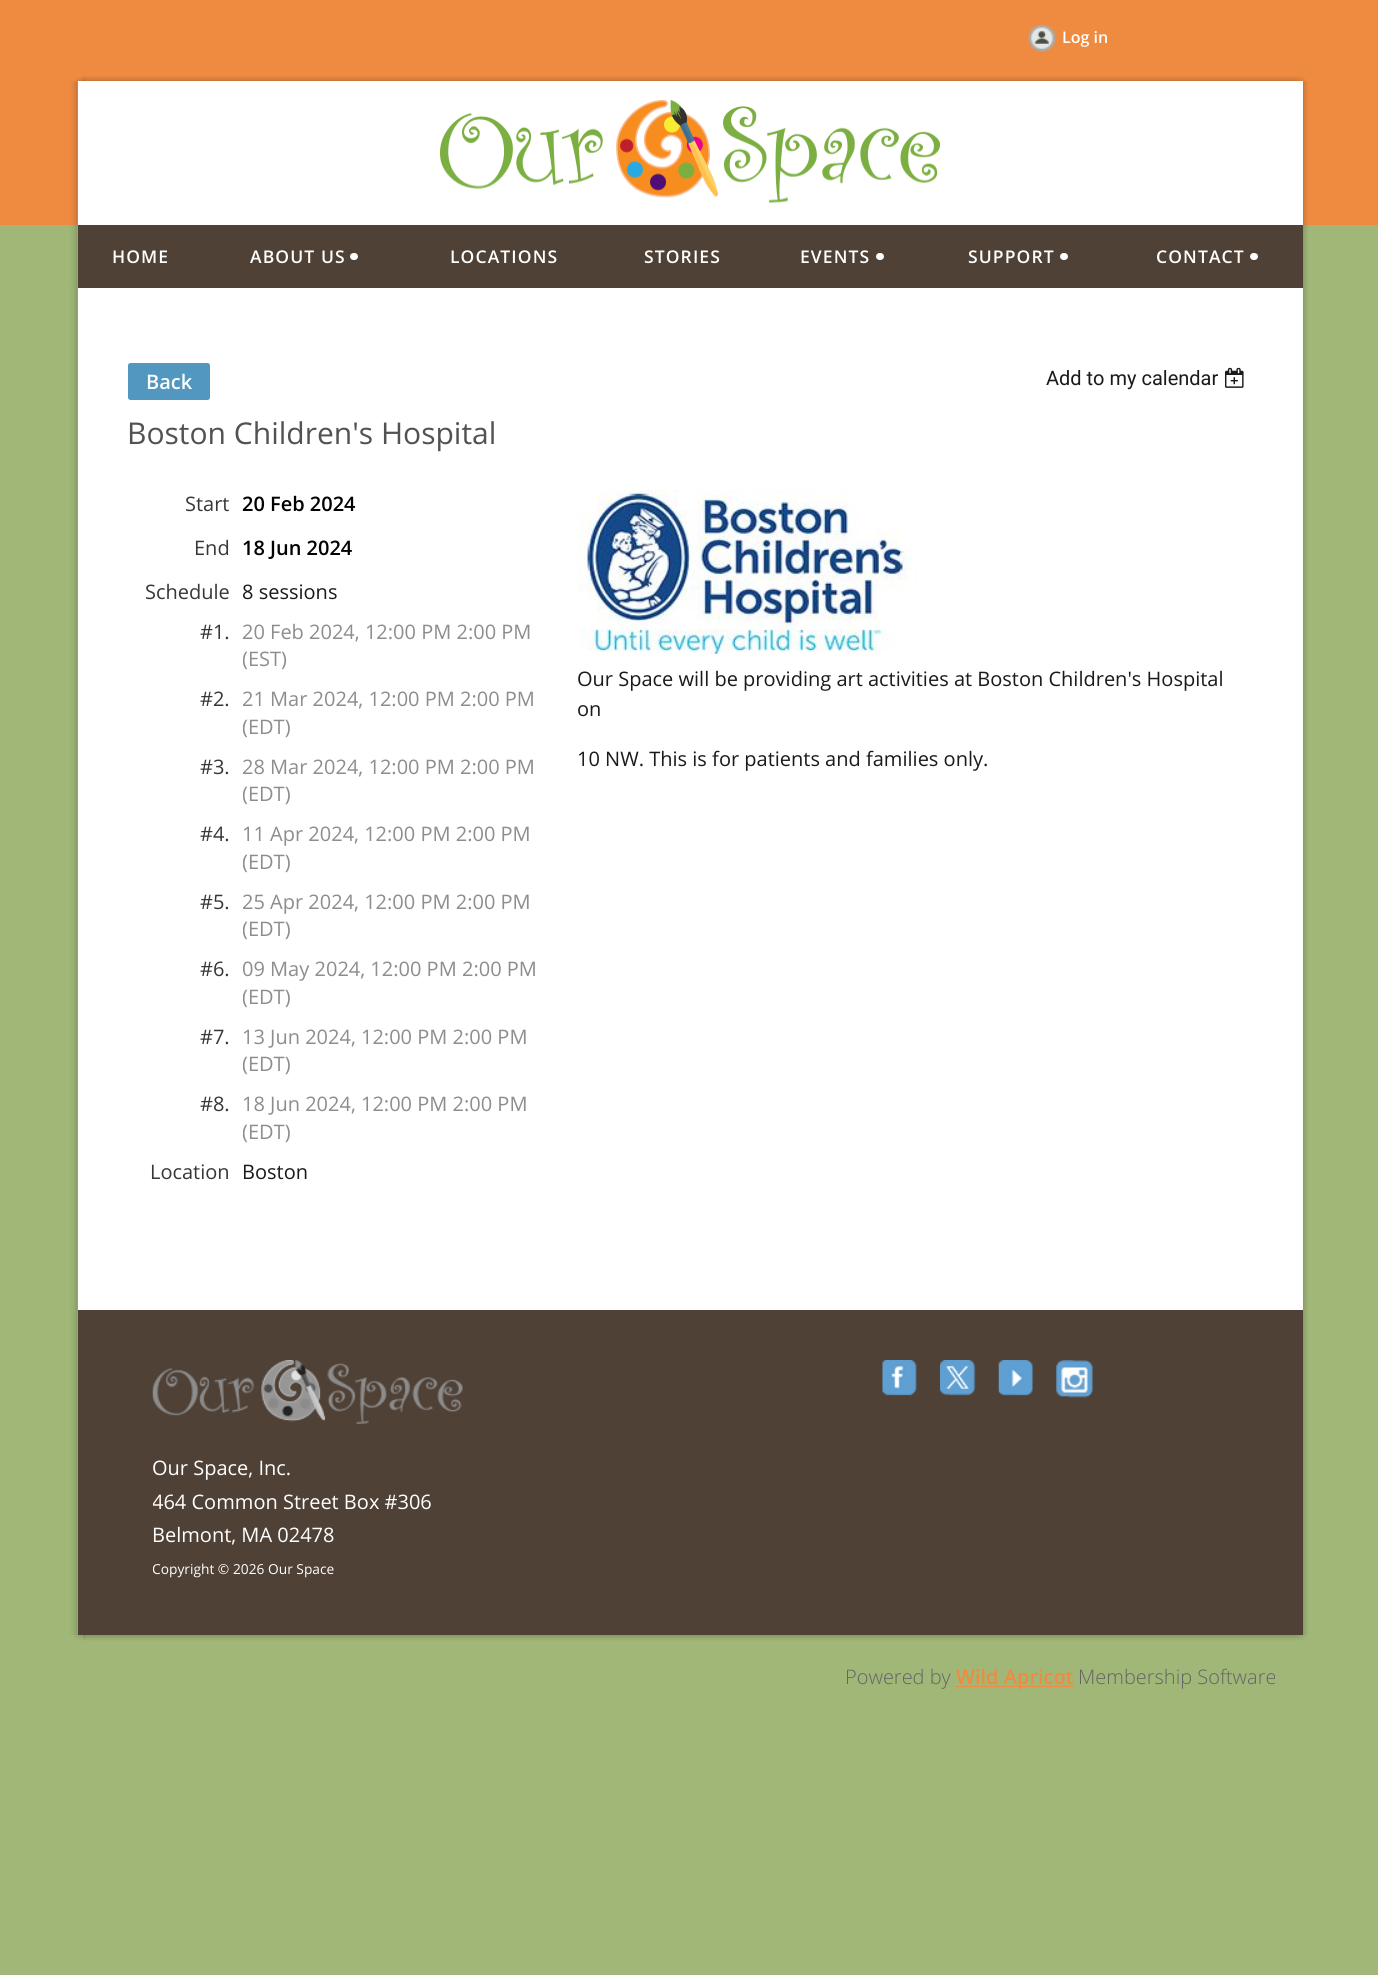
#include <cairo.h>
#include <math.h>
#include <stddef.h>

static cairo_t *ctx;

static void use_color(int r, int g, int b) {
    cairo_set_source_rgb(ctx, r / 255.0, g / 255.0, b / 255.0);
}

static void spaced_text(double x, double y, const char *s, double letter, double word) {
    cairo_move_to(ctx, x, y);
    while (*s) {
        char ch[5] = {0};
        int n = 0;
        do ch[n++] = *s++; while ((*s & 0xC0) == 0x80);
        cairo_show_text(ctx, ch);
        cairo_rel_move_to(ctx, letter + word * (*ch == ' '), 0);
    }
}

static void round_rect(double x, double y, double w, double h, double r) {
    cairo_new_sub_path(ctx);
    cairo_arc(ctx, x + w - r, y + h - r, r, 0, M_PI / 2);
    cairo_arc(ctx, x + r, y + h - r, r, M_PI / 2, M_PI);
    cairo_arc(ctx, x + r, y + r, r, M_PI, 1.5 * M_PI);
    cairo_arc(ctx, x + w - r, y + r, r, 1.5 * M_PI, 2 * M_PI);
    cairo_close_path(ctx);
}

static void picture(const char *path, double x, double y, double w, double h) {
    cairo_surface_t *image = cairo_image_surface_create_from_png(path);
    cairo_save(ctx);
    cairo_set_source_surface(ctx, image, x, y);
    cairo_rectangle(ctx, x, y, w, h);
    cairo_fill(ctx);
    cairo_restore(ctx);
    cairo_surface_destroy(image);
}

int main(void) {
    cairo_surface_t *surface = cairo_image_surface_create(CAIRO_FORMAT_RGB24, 1378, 1975);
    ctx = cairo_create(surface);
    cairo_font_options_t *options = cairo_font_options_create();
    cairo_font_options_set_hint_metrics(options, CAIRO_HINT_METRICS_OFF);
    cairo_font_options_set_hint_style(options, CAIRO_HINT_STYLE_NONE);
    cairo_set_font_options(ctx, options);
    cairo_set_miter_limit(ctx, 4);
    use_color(160, 183, 120);
    cairo_paint(ctx);
    use_color(239, 139, 65);
    cairo_rectangle(ctx, 0, 0, 1378, 225);
    cairo_fill(ctx);
    picture("img1.png", 1028, 25, 28, 27);
    cairo_select_font_face(ctx, "Open Sans SemiBold", CAIRO_FONT_SLANT_NORMAL, CAIRO_FONT_WEIGHT_NORMAL);
    cairo_set_font_size(ctx, 16);
    use_color(255, 255, 255);
    cairo_move_to(ctx, 1062, 43);
    cairo_show_text(ctx, "Log in");
    picture("img2.png", 74, 76, 1232, 5);
    picture("img3.png", 83, 76, 1214, 5);
    picture("img4.png", 70, 81, 1238, 144);
    cairo_rectangle(ctx, 78, 81, 1225, 144);
    cairo_fill(ctx);
    picture("img5.png", 440, 100, 500, 103);
    picture("img6.png", 70, 225, 1238, 63);
    picture("img7.png", 70, 287, 1238, 1023);
    use_color(80, 65, 54);
    cairo_rectangle(ctx, 78, 225, 1225, 63);
    cairo_fill(ctx);
    cairo_set_font_size(ctx, 17.5);
    use_color(255, 255, 255);
    spaced_text(112, 263, "HOME", 1.1, 0);
    spaced_text(250, 263, "ABOUT US", 1.1, 0);
    round_rect(350, 253, 8, 7, 3.5);
    cairo_fill(ctx);
    spaced_text(450, 263, "LOCATIONS", 1.1, 0);
    spaced_text(644, 263, "STORIES", 1.1, 0);
    spaced_text(800, 263, "EVENTS", 1.1, 0);
    round_rect(876, 253, 8, 7, 3.5);
    cairo_fill(ctx);
    spaced_text(968, 263, "SUPPORT", 1.1, 0);
    round_rect(1060, 253, 8, 7, 3.5);
    cairo_fill(ctx);
    spaced_text(1156, 263, "CONTACT", 1.1, 0);
    round_rect(1250, 253, 8, 7, 3.5);
    cairo_fill(ctx);
    cairo_rectangle(ctx, 78, 288, 1225, 1022);
    cairo_fill(ctx);
    use_color(82, 151, 191);
    round_rect(128, 363, 82, 37, 2.5);
    cairo_fill(ctx);
    cairo_set_font_size(ctx, 20);
    use_color(255, 255, 255);
    cairo_move_to(ctx, 146, 389);
    cairo_show_text(ctx, "Back");
    cairo_select_font_face(ctx, "Roboto", CAIRO_FONT_SLANT_NORMAL, CAIRO_FONT_WEIGHT_NORMAL);
    use_color(26, 26, 26);
    cairo_move_to(ctx, 1046, 385);
    cairo_show_text(ctx, "Add to my calendar");
    picture("img8.png", 1225, 367, 19, 21);
    cairo_select_font_face(ctx, "Open Sans", CAIRO_FONT_SLANT_NORMAL, CAIRO_FONT_WEIGHT_NORMAL);
    cairo_set_font_size(ctx, 30);
    use_color(82, 82, 82);
    cairo_move_to(ctx, 127, 444);
    cairo_show_text(ctx, "Boston Children's Hospital");
    cairo_set_font_size(ctx, 20);
    use_color(55, 55, 55);
    cairo_move_to(ctx, 185, 511);
    cairo_show_text(ctx, "Start");
    cairo_select_font_face(ctx, "Open Sans SemiBold", CAIRO_FONT_SLANT_NORMAL, CAIRO_FONT_WEIGHT_NORMAL);
    use_color(0, 0, 0);
    cairo_move_to(ctx, 242, 511);
    cairo_show_text(ctx, "20 Feb 2024");
    cairo_select_font_face(ctx, "Open Sans", CAIRO_FONT_SLANT_NORMAL, CAIRO_FONT_WEIGHT_NORMAL);
    use_color(55, 55, 55);
    cairo_move_to(ctx, 194, 555);
    cairo_show_text(ctx, "End");
    cairo_select_font_face(ctx, "Open Sans SemiBold", CAIRO_FONT_SLANT_NORMAL, CAIRO_FONT_WEIGHT_NORMAL);
    use_color(0, 0, 0);
    cairo_move_to(ctx, 242, 555);
    cairo_show_text(ctx, "18 Jun 2024");
    cairo_select_font_face(ctx, "Open Sans", CAIRO_FONT_SLANT_NORMAL, CAIRO_FONT_WEIGHT_NORMAL);
    use_color(55, 55, 55);
    cairo_move_to(ctx, 145, 599);
    cairo_show_text(ctx, "Schedule");
    use_color(26, 26, 26);
    cairo_move_to(ctx, 242, 599);
    cairo_show_text(ctx, "8 sessions");
    use_color(55, 55, 55);
    cairo_move_to(ctx, 200, 639);
    cairo_show_text(ctx, "#1.");
    use_color(141, 141, 141);
    cairo_move_to(ctx, 242, 639);
    cairo_show_text(ctx, "20 Feb 2024, 12:00 PM 2:00 PM");
    cairo_save(ctx);
    cairo_rectangle(ctx, 243, 618, 297, 55);
    cairo_clip(ctx);
    cairo_move_to(ctx, 242, 666);
    cairo_show_text(ctx, "(EST)");
    cairo_restore(ctx);
    use_color(55, 55, 55);
    cairo_move_to(ctx, 200, 706);
    cairo_show_text(ctx, "#2.");
    use_color(141, 141, 141);
    cairo_move_to(ctx, 242, 706);
    cairo_show_text(ctx, "21 Mar 2024, 12:00 PM 2:00 PM");
    cairo_save(ctx);
    cairo_rectangle(ctx, 243, 685, 297, 55);
    cairo_clip(ctx);
    cairo_move_to(ctx, 242, 734);
    cairo_show_text(ctx, "(EDT)");
    cairo_restore(ctx);
    use_color(55, 55, 55);
    cairo_move_to(ctx, 200, 774);
    cairo_show_text(ctx, "#3.");
    use_color(141, 141, 141);
    cairo_move_to(ctx, 242, 774);
    cairo_show_text(ctx, "28 Mar 2024, 12:00 PM 2:00 PM");
    cairo_save(ctx);
    cairo_rectangle(ctx, 243, 753, 297, 55);
    cairo_clip(ctx);
    cairo_move_to(ctx, 242, 801);
    cairo_show_text(ctx, "(EDT)");
    cairo_restore(ctx);
    use_color(55, 55, 55);
    cairo_move_to(ctx, 200, 841);
    cairo_show_text(ctx, "#4.");
    use_color(141, 141, 141);
    cairo_move_to(ctx, 242, 841);
    cairo_show_text(ctx, "11 Apr 2024, 12:00 PM 2:00 PM");
    cairo_save(ctx);
    cairo_rectangle(ctx, 243, 820, 297, 55);
    cairo_clip(ctx);
    cairo_move_to(ctx, 242, 869);
    cairo_show_text(ctx, "(EDT)");
    cairo_restore(ctx);
    use_color(55, 55, 55);
    cairo_move_to(ctx, 200, 909);
    cairo_show_text(ctx, "#5.");
    use_color(141, 141, 141);
    cairo_move_to(ctx, 242, 909);
    cairo_show_text(ctx, "25 Apr 2024, 12:00 PM 2:00 PM");
    cairo_save(ctx);
    cairo_rectangle(ctx, 243, 888, 297, 55);
    cairo_clip(ctx);
    cairo_move_to(ctx, 242, 936);
    cairo_show_text(ctx, "(EDT)");
    cairo_restore(ctx);
    use_color(55, 55, 55);
    cairo_move_to(ctx, 200, 976);
    cairo_show_text(ctx, "#6.");
    cairo_save(ctx);
    cairo_rectangle(ctx, 243, 955, 297, 55);
    cairo_clip(ctx);
    use_color(141, 141, 141);
    cairo_move_to(ctx, 242, 976);
    cairo_show_text(ctx, "09 May 2024, 12:00 PM");
    cairo_restore(ctx);
    use_color(141, 141, 141);
    cairo_move_to(ctx, 462, 976);
    cairo_show_text(ctx, "2:00 PM");
    cairo_save(ctx);
    cairo_rectangle(ctx, 243, 955, 297, 55);
    cairo_clip(ctx);
    cairo_move_to(ctx, 242, 1004);
    cairo_show_text(ctx, "(EDT)");
    cairo_restore(ctx);
    use_color(55, 55, 55);
    cairo_move_to(ctx, 200, 1044);
    cairo_show_text(ctx, "#7.");
    use_color(141, 141, 141);
    cairo_move_to(ctx, 242, 1044);
    cairo_show_text(ctx, "13 Jun 2024, 12:00 PM 2:00 PM");
    cairo_save(ctx);
    cairo_rectangle(ctx, 243, 1023, 297, 55);
    cairo_clip(ctx);
    cairo_move_to(ctx, 242, 1071);
    cairo_show_text(ctx, "(EDT)");
    cairo_restore(ctx);
    use_color(55, 55, 55);
    cairo_move_to(ctx, 200, 1111);
    cairo_show_text(ctx, "#8.");
    use_color(141, 141, 141);
    cairo_move_to(ctx, 242, 1111);
    cairo_show_text(ctx, "18 Jun 2024, 12:00 PM 2:00 PM");
    cairo_save(ctx);
    cairo_rectangle(ctx, 243, 1090, 297, 55);
    cairo_clip(ctx);
    cairo_move_to(ctx, 242, 1139);
    cairo_show_text(ctx, "(EDT)");
    cairo_restore(ctx);
    use_color(55, 55, 55);
    cairo_move_to(ctx, 150, 1179);
    cairo_show_text(ctx, "Location");
    use_color(26, 26, 26);
    cairo_move_to(ctx, 242, 1179);
    cairo_show_text(ctx, "Boston");
    picture("img9.png", 577, 490, 340, 164);
    cairo_move_to(ctx, 577, 686);
    cairo_show_text(ctx, "Our Space will be providing art activities at Boston Children's Hospital");
    cairo_move_to(ctx, 577, 716);
    cairo_show_text(ctx, "on");
    cairo_move_to(ctx, 577, 766);
    cairo_show_text(ctx, "10 NW. This is for patients and families only.");
    picture("img10.png", 70, 1310, 1238, 325);
    use_color(80, 65, 54);
    cairo_rectangle(ctx, 78, 1310, 1225, 325);
    cairo_fill(ctx);
    picture("img11.png", 882, 1360, 35, 36);
    picture("img12.png", 940, 1360, 36, 36);
    picture("img13.png", 998, 1360, 35, 36);
    picture("img14.png", 1056, 1360, 37, 38);
    picture("img15.png", 152, 1360, 311, 64);
    use_color(255, 255, 255);
    cairo_move_to(ctx, 152, 1475);
    cairo_show_text(ctx, "Our Space, Inc.");
    cairo_save(ctx);
    cairo_rectangle(ctx, 153, 1360, 525, 225);
    cairo_clip(ctx);
    cairo_move_to(ctx, 152, 1509);
    cairo_show_text(ctx, "464 Common Street Box #306");
    cairo_restore(ctx);
    cairo_move_to(ctx, 152, 1542);
    cairo_show_text(ctx, "Belmont, MA 02478");
    cairo_save(ctx);
    cairo_rectangle(ctx, 153, 1360, 525, 225);
    cairo_clip(ctx);
    cairo_set_font_size(ctx, 13.75);
    cairo_move_to(ctx, 152, 1574);
    cairo_show_text(ctx, "Copyright ©");
    cairo_restore(ctx);
    cairo_set_font_size(ctx, 13.75);
    cairo_move_to(ctx, 233, 1574);
    cairo_show_text(ctx, "2026 Our Space");
    picture("img16.png", 74, 1635, 1232, 5);
    picture("img17.png", 83, 1635, 1214, 6);
    cairo_select_font_face(ctx, "Open Sans Light", CAIRO_FONT_SLANT_NORMAL, CAIRO_FONT_WEIGHT_NORMAL);
    cairo_set_font_size(ctx, 20);
    use_color(100, 100, 100);
    cairo_move_to(ctx, 845, 1684);
    cairo_show_text(ctx, "Powered by");
    use_color(239, 139, 65);
    cairo_rectangle(ctx, 956, 1686, 118, 1);
    cairo_fill(ctx);
    cairo_select_font_face(ctx, "Open Sans SemiBold", CAIRO_FONT_SLANT_NORMAL, CAIRO_FONT_WEIGHT_NORMAL);
    cairo_move_to(ctx, 956, 1684);
    cairo_show_text(ctx, "Wild Apricot");
    cairo_select_font_face(ctx, "Open Sans Light", CAIRO_FONT_SLANT_NORMAL, CAIRO_FONT_WEIGHT_NORMAL);
    use_color(100, 100, 100);
    cairo_move_to(ctx, 1078, 1684);
    cairo_show_text(ctx, "Membership Software");
    cairo_surface_write_to_png(surface, "result.png");
    cairo_font_options_destroy(options);
    cairo_destroy(ctx);
    cairo_surface_destroy(surface);
    return 0;
}
